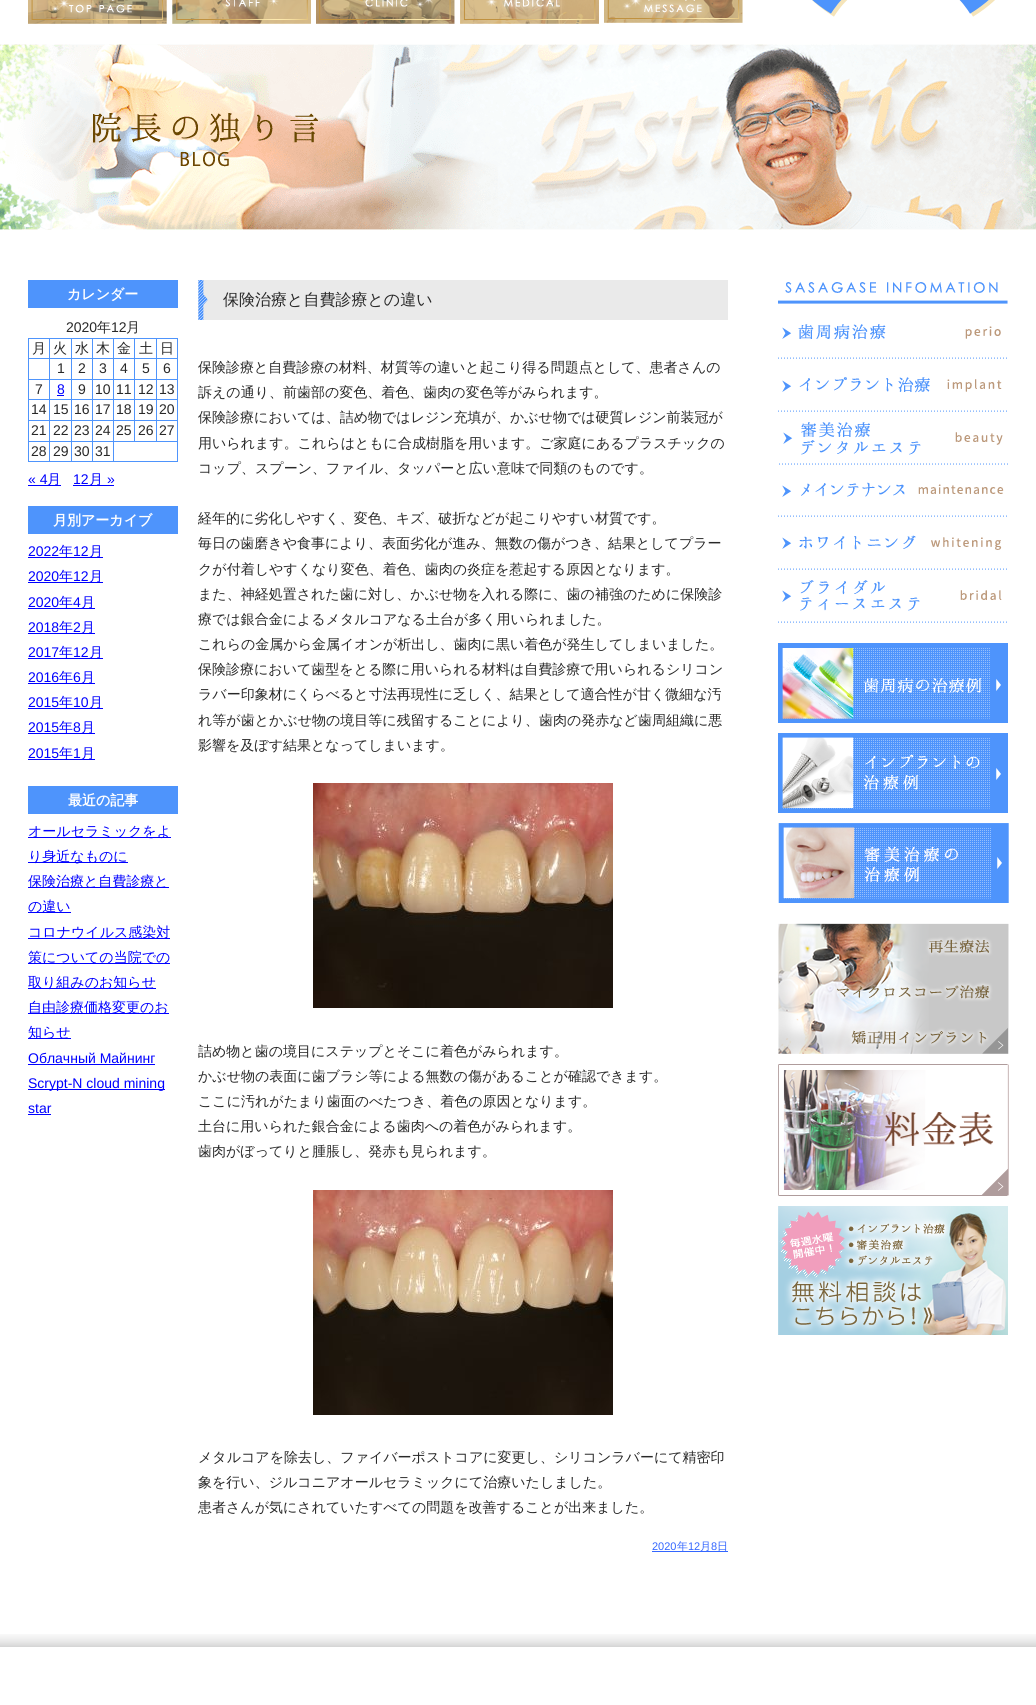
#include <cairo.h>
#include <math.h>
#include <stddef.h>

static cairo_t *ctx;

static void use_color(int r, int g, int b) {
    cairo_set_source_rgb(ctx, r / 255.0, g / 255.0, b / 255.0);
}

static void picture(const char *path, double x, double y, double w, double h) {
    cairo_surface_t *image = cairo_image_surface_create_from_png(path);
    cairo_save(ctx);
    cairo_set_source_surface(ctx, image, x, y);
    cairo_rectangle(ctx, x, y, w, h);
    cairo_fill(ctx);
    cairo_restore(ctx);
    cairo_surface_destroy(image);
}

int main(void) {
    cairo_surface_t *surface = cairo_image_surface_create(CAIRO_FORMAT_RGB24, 1036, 1705);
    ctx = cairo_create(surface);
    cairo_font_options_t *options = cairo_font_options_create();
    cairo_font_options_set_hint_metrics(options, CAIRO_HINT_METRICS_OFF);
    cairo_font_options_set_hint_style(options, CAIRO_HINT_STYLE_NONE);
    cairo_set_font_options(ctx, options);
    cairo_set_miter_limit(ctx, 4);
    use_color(255, 255, 255);
    cairo_paint(ctx);
    picture("img1.png", 28, 0, 139, 24);
    picture("img2.png", 172, 0, 139, 24);
    picture("img3.png", 316, 0, 139, 24);
    picture("img4.png", 460, 0, 139, 24);
    picture("img5.png", 604, 0, 139, 23);
    picture("img6.png", 812, 0, 183, 17);
    picture("img7.png", 0, 44, 1036, 186);
    picture("img8.png", 0, 1634, 1036, 13);
    use_color(78, 148, 252);
    cairo_rectangle(ctx, 28, 280, 150, 28);
    cairo_fill(ctx);
    cairo_select_font_face(ctx, "WenQuanYi Zen Hei", CAIRO_FONT_SLANT_NORMAL, CAIRO_FONT_WEIGHT_BOLD);
    cairo_set_font_size(ctx, 14);
    use_color(255, 255, 255);
    cairo_move_to(ctx, 67, 299);
    cairo_show_text(ctx, "カレンダー");
    cairo_select_font_face(ctx, "Liberation Sans", CAIRO_FONT_SLANT_NORMAL, CAIRO_FONT_WEIGHT_NORMAL);
    use_color(40, 40, 40);
    cairo_move_to(ctx, 66, 332);
    cairo_show_text(ctx, "2020");
    cairo_select_font_face(ctx, "WenQuanYi Zen Hei Medium", CAIRO_FONT_SLANT_NORMAL, CAIRO_FONT_WEIGHT_NORMAL);
    cairo_move_to(ctx, 97, 332);
    cairo_show_text(ctx, "年");
    cairo_select_font_face(ctx, "Liberation Sans", CAIRO_FONT_SLANT_NORMAL, CAIRO_FONT_WEIGHT_NORMAL);
    cairo_move_to(ctx, 111, 332);
    cairo_show_text(ctx, "12");
    cairo_select_font_face(ctx, "WenQuanYi Zen Hei Medium", CAIRO_FONT_SLANT_NORMAL, CAIRO_FONT_WEIGHT_NORMAL);
    cairo_move_to(ctx, 126, 332);
    cairo_show_text(ctx, "月");
    use_color(78, 148, 252);
    cairo_rectangle(ctx, 156, 338, 22, 1);
    cairo_fill(ctx);
    cairo_rectangle(ctx, 28, 358, 150, 1);
    cairo_fill(ctx);
    cairo_rectangle(ctx, 177, 358, 1, 104);
    cairo_fill(ctx);
    cairo_rectangle(ctx, 156, 379, 22, 1);
    cairo_fill(ctx);
    cairo_rectangle(ctx, 156, 399, 22, 1);
    cairo_fill(ctx);
    cairo_rectangle(ctx, 156, 420, 22, 1);
    cairo_fill(ctx);
    cairo_rectangle(ctx, 113, 441, 65, 1);
    cairo_fill(ctx);
    cairo_rectangle(ctx, 156, 420, 1, 22);
    cairo_fill(ctx);
    cairo_rectangle(ctx, 134, 420, 23, 1);
    cairo_fill(ctx);
    cairo_rectangle(ctx, 156, 399, 1, 22);
    cairo_fill(ctx);
    cairo_rectangle(ctx, 134, 399, 23, 1);
    cairo_fill(ctx);
    cairo_rectangle(ctx, 156, 379, 1, 21);
    cairo_fill(ctx);
    cairo_rectangle(ctx, 134, 379, 23, 1);
    cairo_fill(ctx);
    cairo_rectangle(ctx, 156, 358, 1, 22);
    cairo_fill(ctx);
    cairo_rectangle(ctx, 156, 338, 1, 21);
    cairo_fill(ctx);
    cairo_rectangle(ctx, 134, 338, 23, 1);
    cairo_fill(ctx);
    cairo_rectangle(ctx, 134, 420, 1, 22);
    cairo_fill(ctx);
    cairo_rectangle(ctx, 113, 420, 22, 1);
    cairo_fill(ctx);
    cairo_rectangle(ctx, 134, 399, 1, 22);
    cairo_fill(ctx);
    cairo_rectangle(ctx, 113, 399, 22, 1);
    cairo_fill(ctx);
    cairo_rectangle(ctx, 134, 379, 1, 21);
    cairo_fill(ctx);
    cairo_rectangle(ctx, 113, 379, 22, 1);
    cairo_fill(ctx);
    cairo_rectangle(ctx, 134, 358, 1, 22);
    cairo_fill(ctx);
    cairo_rectangle(ctx, 134, 338, 1, 21);
    cairo_fill(ctx);
    cairo_rectangle(ctx, 113, 338, 22, 1);
    cairo_fill(ctx);
    cairo_rectangle(ctx, 28, 461, 150, 1);
    cairo_fill(ctx);
    cairo_rectangle(ctx, 113, 441, 1, 21);
    cairo_fill(ctx);
    cairo_rectangle(ctx, 92, 441, 22, 1);
    cairo_fill(ctx);
    cairo_rectangle(ctx, 113, 420, 1, 22);
    cairo_fill(ctx);
    cairo_rectangle(ctx, 92, 420, 22, 1);
    cairo_fill(ctx);
    cairo_rectangle(ctx, 113, 399, 1, 22);
    cairo_fill(ctx);
    cairo_rectangle(ctx, 92, 399, 22, 1);
    cairo_fill(ctx);
    cairo_rectangle(ctx, 113, 379, 1, 21);
    cairo_fill(ctx);
    cairo_rectangle(ctx, 92, 379, 22, 1);
    cairo_fill(ctx);
    cairo_rectangle(ctx, 113, 358, 1, 22);
    cairo_fill(ctx);
    cairo_rectangle(ctx, 113, 338, 1, 21);
    cairo_fill(ctx);
    cairo_rectangle(ctx, 92, 338, 22, 1);
    cairo_fill(ctx);
    cairo_rectangle(ctx, 92, 441, 1, 21);
    cairo_fill(ctx);
    cairo_rectangle(ctx, 71, 441, 22, 1);
    cairo_fill(ctx);
    cairo_rectangle(ctx, 92, 420, 1, 22);
    cairo_fill(ctx);
    cairo_rectangle(ctx, 71, 420, 22, 1);
    cairo_fill(ctx);
    cairo_rectangle(ctx, 92, 399, 1, 22);
    cairo_fill(ctx);
    cairo_rectangle(ctx, 71, 399, 22, 1);
    cairo_fill(ctx);
    cairo_rectangle(ctx, 92, 379, 1, 21);
    cairo_fill(ctx);
    cairo_rectangle(ctx, 71, 379, 22, 1);
    cairo_fill(ctx);
    cairo_rectangle(ctx, 92, 358, 1, 22);
    cairo_fill(ctx);
    cairo_rectangle(ctx, 92, 338, 1, 21);
    cairo_fill(ctx);
    cairo_rectangle(ctx, 71, 338, 22, 1);
    cairo_fill(ctx);
    cairo_rectangle(ctx, 71, 441, 1, 21);
    cairo_fill(ctx);
    cairo_rectangle(ctx, 49, 441, 23, 1);
    cairo_fill(ctx);
    cairo_rectangle(ctx, 71, 420, 1, 22);
    cairo_fill(ctx);
    cairo_rectangle(ctx, 49, 420, 23, 1);
    cairo_fill(ctx);
    cairo_rectangle(ctx, 71, 399, 1, 22);
    cairo_fill(ctx);
    cairo_rectangle(ctx, 49, 399, 23, 1);
    cairo_fill(ctx);
    cairo_rectangle(ctx, 71, 379, 1, 21);
    cairo_fill(ctx);
    cairo_rectangle(ctx, 49, 379, 23, 1);
    cairo_fill(ctx);
    cairo_rectangle(ctx, 71, 358, 1, 22);
    cairo_fill(ctx);
    cairo_rectangle(ctx, 71, 338, 1, 21);
    cairo_fill(ctx);
    cairo_rectangle(ctx, 49, 338, 23, 1);
    cairo_fill(ctx);
    cairo_rectangle(ctx, 28, 358, 1, 104);
    cairo_fill(ctx);
    cairo_rectangle(ctx, 49, 441, 1, 21);
    cairo_fill(ctx);
    cairo_rectangle(ctx, 28, 441, 22, 1);
    cairo_fill(ctx);
    cairo_rectangle(ctx, 49, 420, 1, 22);
    cairo_fill(ctx);
    cairo_rectangle(ctx, 28, 420, 22, 1);
    cairo_fill(ctx);
    cairo_rectangle(ctx, 49, 399, 1, 22);
    cairo_fill(ctx);
    cairo_rectangle(ctx, 28, 399, 22, 1);
    cairo_fill(ctx);
    cairo_rectangle(ctx, 49, 379, 1, 21);
    cairo_fill(ctx);
    cairo_rectangle(ctx, 28, 379, 22, 1);
    cairo_fill(ctx);
    cairo_rectangle(ctx, 49, 358, 1, 22);
    cairo_fill(ctx);
    cairo_rectangle(ctx, 49, 338, 1, 21);
    cairo_fill(ctx);
    cairo_rectangle(ctx, 28, 338, 22, 1);
    cairo_fill(ctx);
    cairo_rectangle(ctx, 28, 338, 1, 21);
    cairo_fill(ctx);
    use_color(40, 40, 40);
    cairo_move_to(ctx, 32, 353);
    cairo_show_text(ctx, "月");
    cairo_move_to(ctx, 53, 353);
    cairo_show_text(ctx, "火");
    cairo_move_to(ctx, 75, 353);
    cairo_show_text(ctx, "水");
    cairo_move_to(ctx, 96, 353);
    cairo_show_text(ctx, "木");
    cairo_move_to(ctx, 117, 353);
    cairo_show_text(ctx, "金");
    cairo_move_to(ctx, 139, 353);
    cairo_show_text(ctx, "土");
    use_color(78, 148, 252);
    cairo_rectangle(ctx, 177, 338, 1, 21);
    cairo_fill(ctx);
    use_color(40, 40, 40);
    cairo_move_to(ctx, 160, 353);
    cairo_show_text(ctx, "日");
    cairo_select_font_face(ctx, "Liberation Sans", CAIRO_FONT_SLANT_NORMAL, CAIRO_FONT_WEIGHT_NORMAL);
    cairo_move_to(ctx, 57, 373);
    cairo_show_text(ctx, "1");
    cairo_move_to(ctx, 78, 373);
    cairo_show_text(ctx, "2");
    cairo_move_to(ctx, 99, 373);
    cairo_show_text(ctx, "3");
    cairo_move_to(ctx, 120, 373);
    cairo_show_text(ctx, "4");
    cairo_move_to(ctx, 142, 373);
    cairo_show_text(ctx, "5");
    cairo_move_to(ctx, 163, 373);
    cairo_show_text(ctx, "6");
    cairo_move_to(ctx, 35, 394);
    cairo_show_text(ctx, "7");
    use_color(0, 0, 255);
    cairo_move_to(ctx, 57, 394);
    cairo_show_text(ctx, "8");
    cairo_rectangle(ctx, 57, 395, 7, 1);
    cairo_fill(ctx);
    use_color(40, 40, 40);
    cairo_move_to(ctx, 78, 394);
    cairo_show_text(ctx, "9");
    cairo_move_to(ctx, 95, 394);
    cairo_show_text(ctx, "10");
    cairo_move_to(ctx, 116, 394);
    cairo_show_text(ctx, "11");
    cairo_move_to(ctx, 138, 394);
    cairo_show_text(ctx, "12");
    cairo_move_to(ctx, 159, 394);
    cairo_show_text(ctx, "13");
    cairo_move_to(ctx, 31, 414);
    cairo_show_text(ctx, "14");
    cairo_move_to(ctx, 53, 414);
    cairo_show_text(ctx, "15");
    cairo_move_to(ctx, 74, 414);
    cairo_show_text(ctx, "16");
    cairo_move_to(ctx, 95, 414);
    cairo_show_text(ctx, "17");
    cairo_move_to(ctx, 116, 414);
    cairo_show_text(ctx, "18");
    cairo_move_to(ctx, 138, 414);
    cairo_show_text(ctx, "19");
    cairo_move_to(ctx, 159, 414);
    cairo_show_text(ctx, "20");
    cairo_move_to(ctx, 31, 435);
    cairo_show_text(ctx, "21");
    cairo_move_to(ctx, 53, 435);
    cairo_show_text(ctx, "22");
    cairo_move_to(ctx, 74, 435);
    cairo_show_text(ctx, "23");
    cairo_move_to(ctx, 95, 435);
    cairo_show_text(ctx, "24");
    cairo_move_to(ctx, 116, 435);
    cairo_show_text(ctx, "25");
    cairo_move_to(ctx, 138, 435);
    cairo_show_text(ctx, "26");
    cairo_move_to(ctx, 159, 435);
    cairo_show_text(ctx, "27");
    cairo_move_to(ctx, 31, 456);
    cairo_show_text(ctx, "28");
    cairo_move_to(ctx, 53, 456);
    cairo_show_text(ctx, "29");
    cairo_move_to(ctx, 74, 456);
    cairo_show_text(ctx, "30");
    cairo_move_to(ctx, 95, 456);
    cairo_show_text(ctx, "31");
    use_color(0, 0, 255);
    cairo_move_to(ctx, 28, 484);
    cairo_show_text(ctx, "« 4");
    cairo_rectangle(ctx, 28, 485, 33, 1);
    cairo_fill(ctx);
    cairo_select_font_face(ctx, "WenQuanYi Zen Hei Medium", CAIRO_FONT_SLANT_NORMAL, CAIRO_FONT_WEIGHT_NORMAL);
    cairo_move_to(ctx, 47, 484);
    cairo_show_text(ctx, "月");
    cairo_select_font_face(ctx, "Liberation Sans", CAIRO_FONT_SLANT_NORMAL, CAIRO_FONT_WEIGHT_NORMAL);
    cairo_move_to(ctx, 73, 484);
    cairo_show_text(ctx, "12");
    cairo_rectangle(ctx, 73, 485, 41, 1);
    cairo_fill(ctx);
    cairo_select_font_face(ctx, "WenQuanYi Zen Hei Medium", CAIRO_FONT_SLANT_NORMAL, CAIRO_FONT_WEIGHT_NORMAL);
    cairo_move_to(ctx, 89, 484);
    cairo_show_text(ctx, "月");
    cairo_select_font_face(ctx, "Liberation Sans", CAIRO_FONT_SLANT_NORMAL, CAIRO_FONT_WEIGHT_NORMAL);
    cairo_move_to(ctx, 107, 484);
    cairo_show_text(ctx, "»");
    use_color(78, 148, 252);
    cairo_rectangle(ctx, 28, 506, 150, 28);
    cairo_fill(ctx);
    cairo_select_font_face(ctx, "WenQuanYi Zen Hei", CAIRO_FONT_SLANT_NORMAL, CAIRO_FONT_WEIGHT_BOLD);
    use_color(255, 255, 255);
    cairo_move_to(ctx, 53, 525);
    cairo_show_text(ctx, "月別アーカイブ");
    cairo_select_font_face(ctx, "Liberation Sans", CAIRO_FONT_SLANT_NORMAL, CAIRO_FONT_WEIGHT_NORMAL);
    use_color(0, 0, 255);
    cairo_move_to(ctx, 28, 556);
    cairo_show_text(ctx, "2022");
    cairo_rectangle(ctx, 28, 557, 75, 1);
    cairo_fill(ctx);
    cairo_select_font_face(ctx, "WenQuanYi Zen Hei Medium", CAIRO_FONT_SLANT_NORMAL, CAIRO_FONT_WEIGHT_NORMAL);
    cairo_move_to(ctx, 59, 556);
    cairo_show_text(ctx, "年");
    cairo_select_font_face(ctx, "Liberation Sans", CAIRO_FONT_SLANT_NORMAL, CAIRO_FONT_WEIGHT_NORMAL);
    cairo_move_to(ctx, 73, 556);
    cairo_show_text(ctx, "12");
    cairo_select_font_face(ctx, "WenQuanYi Zen Hei Medium", CAIRO_FONT_SLANT_NORMAL, CAIRO_FONT_WEIGHT_NORMAL);
    cairo_move_to(ctx, 89, 556);
    cairo_show_text(ctx, "月");
    cairo_select_font_face(ctx, "Liberation Sans", CAIRO_FONT_SLANT_NORMAL, CAIRO_FONT_WEIGHT_NORMAL);
    cairo_move_to(ctx, 28, 581);
    cairo_show_text(ctx, "2020");
    cairo_rectangle(ctx, 28, 582, 75, 1);
    cairo_fill(ctx);
    cairo_select_font_face(ctx, "WenQuanYi Zen Hei Medium", CAIRO_FONT_SLANT_NORMAL, CAIRO_FONT_WEIGHT_NORMAL);
    cairo_move_to(ctx, 59, 581);
    cairo_show_text(ctx, "年");
    cairo_select_font_face(ctx, "Liberation Sans", CAIRO_FONT_SLANT_NORMAL, CAIRO_FONT_WEIGHT_NORMAL);
    cairo_move_to(ctx, 73, 581);
    cairo_show_text(ctx, "12");
    cairo_select_font_face(ctx, "WenQuanYi Zen Hei Medium", CAIRO_FONT_SLANT_NORMAL, CAIRO_FONT_WEIGHT_NORMAL);
    cairo_move_to(ctx, 89, 581);
    cairo_show_text(ctx, "月");
    cairo_select_font_face(ctx, "Liberation Sans", CAIRO_FONT_SLANT_NORMAL, CAIRO_FONT_WEIGHT_NORMAL);
    cairo_move_to(ctx, 28, 607);
    cairo_show_text(ctx, "2020");
    cairo_rectangle(ctx, 28, 608, 67, 1);
    cairo_fill(ctx);
    cairo_select_font_face(ctx, "WenQuanYi Zen Hei Medium", CAIRO_FONT_SLANT_NORMAL, CAIRO_FONT_WEIGHT_NORMAL);
    cairo_move_to(ctx, 59, 607);
    cairo_show_text(ctx, "年");
    cairo_select_font_face(ctx, "Liberation Sans", CAIRO_FONT_SLANT_NORMAL, CAIRO_FONT_WEIGHT_NORMAL);
    cairo_move_to(ctx, 73, 607);
    cairo_show_text(ctx, "4");
    cairo_select_font_face(ctx, "WenQuanYi Zen Hei Medium", CAIRO_FONT_SLANT_NORMAL, CAIRO_FONT_WEIGHT_NORMAL);
    cairo_move_to(ctx, 81, 607);
    cairo_show_text(ctx, "月");
    cairo_select_font_face(ctx, "Liberation Sans", CAIRO_FONT_SLANT_NORMAL, CAIRO_FONT_WEIGHT_NORMAL);
    cairo_move_to(ctx, 28, 632);
    cairo_show_text(ctx, "2018");
    cairo_rectangle(ctx, 28, 633, 67, 1);
    cairo_fill(ctx);
    cairo_select_font_face(ctx, "WenQuanYi Zen Hei Medium", CAIRO_FONT_SLANT_NORMAL, CAIRO_FONT_WEIGHT_NORMAL);
    cairo_move_to(ctx, 59, 632);
    cairo_show_text(ctx, "年");
    cairo_select_font_face(ctx, "Liberation Sans", CAIRO_FONT_SLANT_NORMAL, CAIRO_FONT_WEIGHT_NORMAL);
    cairo_move_to(ctx, 73, 632);
    cairo_show_text(ctx, "2");
    cairo_select_font_face(ctx, "WenQuanYi Zen Hei Medium", CAIRO_FONT_SLANT_NORMAL, CAIRO_FONT_WEIGHT_NORMAL);
    cairo_move_to(ctx, 81, 632);
    cairo_show_text(ctx, "月");
    cairo_select_font_face(ctx, "Liberation Sans", CAIRO_FONT_SLANT_NORMAL, CAIRO_FONT_WEIGHT_NORMAL);
    cairo_move_to(ctx, 28, 657);
    cairo_show_text(ctx, "2017");
    cairo_rectangle(ctx, 28, 658, 75, 1);
    cairo_fill(ctx);
    cairo_select_font_face(ctx, "WenQuanYi Zen Hei Medium", CAIRO_FONT_SLANT_NORMAL, CAIRO_FONT_WEIGHT_NORMAL);
    cairo_move_to(ctx, 59, 657);
    cairo_show_text(ctx, "年");
    cairo_select_font_face(ctx, "Liberation Sans", CAIRO_FONT_SLANT_NORMAL, CAIRO_FONT_WEIGHT_NORMAL);
    cairo_move_to(ctx, 73, 657);
    cairo_show_text(ctx, "12");
    cairo_select_font_face(ctx, "WenQuanYi Zen Hei Medium", CAIRO_FONT_SLANT_NORMAL, CAIRO_FONT_WEIGHT_NORMAL);
    cairo_move_to(ctx, 89, 657);
    cairo_show_text(ctx, "月");
    cairo_select_font_face(ctx, "Liberation Sans", CAIRO_FONT_SLANT_NORMAL, CAIRO_FONT_WEIGHT_NORMAL);
    cairo_move_to(ctx, 28, 682);
    cairo_show_text(ctx, "2016");
    cairo_rectangle(ctx, 28, 683, 67, 1);
    cairo_fill(ctx);
    cairo_select_font_face(ctx, "WenQuanYi Zen Hei Medium", CAIRO_FONT_SLANT_NORMAL, CAIRO_FONT_WEIGHT_NORMAL);
    cairo_move_to(ctx, 59, 682);
    cairo_show_text(ctx, "年");
    cairo_select_font_face(ctx, "Liberation Sans", CAIRO_FONT_SLANT_NORMAL, CAIRO_FONT_WEIGHT_NORMAL);
    cairo_move_to(ctx, 73, 682);
    cairo_show_text(ctx, "6");
    cairo_select_font_face(ctx, "WenQuanYi Zen Hei Medium", CAIRO_FONT_SLANT_NORMAL, CAIRO_FONT_WEIGHT_NORMAL);
    cairo_move_to(ctx, 81, 682);
    cairo_show_text(ctx, "月");
    cairo_select_font_face(ctx, "Liberation Sans", CAIRO_FONT_SLANT_NORMAL, CAIRO_FONT_WEIGHT_NORMAL);
    cairo_move_to(ctx, 28, 707);
    cairo_show_text(ctx, "2015");
    cairo_rectangle(ctx, 28, 708, 75, 1);
    cairo_fill(ctx);
    cairo_select_font_face(ctx, "WenQuanYi Zen Hei Medium", CAIRO_FONT_SLANT_NORMAL, CAIRO_FONT_WEIGHT_NORMAL);
    cairo_move_to(ctx, 59, 707);
    cairo_show_text(ctx, "年");
    cairo_select_font_face(ctx, "Liberation Sans", CAIRO_FONT_SLANT_NORMAL, CAIRO_FONT_WEIGHT_NORMAL);
    cairo_move_to(ctx, 73, 707);
    cairo_show_text(ctx, "10");
    cairo_select_font_face(ctx, "WenQuanYi Zen Hei Medium", CAIRO_FONT_SLANT_NORMAL, CAIRO_FONT_WEIGHT_NORMAL);
    cairo_move_to(ctx, 89, 707);
    cairo_show_text(ctx, "月");
    cairo_select_font_face(ctx, "Liberation Sans", CAIRO_FONT_SLANT_NORMAL, CAIRO_FONT_WEIGHT_NORMAL);
    cairo_move_to(ctx, 28, 732);
    cairo_show_text(ctx, "2015");
    cairo_rectangle(ctx, 28, 733, 67, 1);
    cairo_fill(ctx);
    cairo_select_font_face(ctx, "WenQuanYi Zen Hei Medium", CAIRO_FONT_SLANT_NORMAL, CAIRO_FONT_WEIGHT_NORMAL);
    cairo_move_to(ctx, 59, 732);
    cairo_show_text(ctx, "年");
    cairo_select_font_face(ctx, "Liberation Sans", CAIRO_FONT_SLANT_NORMAL, CAIRO_FONT_WEIGHT_NORMAL);
    cairo_move_to(ctx, 73, 732);
    cairo_show_text(ctx, "8");
    cairo_select_font_face(ctx, "WenQuanYi Zen Hei Medium", CAIRO_FONT_SLANT_NORMAL, CAIRO_FONT_WEIGHT_NORMAL);
    cairo_move_to(ctx, 81, 732);
    cairo_show_text(ctx, "月");
    cairo_select_font_face(ctx, "Liberation Sans", CAIRO_FONT_SLANT_NORMAL, CAIRO_FONT_WEIGHT_NORMAL);
    cairo_move_to(ctx, 28, 758);
    cairo_show_text(ctx, "2015");
    cairo_rectangle(ctx, 28, 759, 67, 1);
    cairo_fill(ctx);
    cairo_select_font_face(ctx, "WenQuanYi Zen Hei Medium", CAIRO_FONT_SLANT_NORMAL, CAIRO_FONT_WEIGHT_NORMAL);
    cairo_move_to(ctx, 59, 758);
    cairo_show_text(ctx, "年");
    cairo_select_font_face(ctx, "Liberation Sans", CAIRO_FONT_SLANT_NORMAL, CAIRO_FONT_WEIGHT_NORMAL);
    cairo_move_to(ctx, 73, 758);
    cairo_show_text(ctx, "1");
    cairo_select_font_face(ctx, "WenQuanYi Zen Hei Medium", CAIRO_FONT_SLANT_NORMAL, CAIRO_FONT_WEIGHT_NORMAL);
    cairo_move_to(ctx, 81, 758);
    cairo_show_text(ctx, "月");
    use_color(78, 148, 252);
    cairo_rectangle(ctx, 28, 786, 150, 28);
    cairo_fill(ctx);
    cairo_select_font_face(ctx, "WenQuanYi Zen Hei", CAIRO_FONT_SLANT_NORMAL, CAIRO_FONT_WEIGHT_BOLD);
    use_color(255, 255, 255);
    cairo_move_to(ctx, 68, 805);
    cairo_show_text(ctx, "最近の記事");
    use_color(0, 0, 255);
    cairo_rectangle(ctx, 28, 837, 143, 1);
    cairo_fill(ctx);
    cairo_select_font_face(ctx, "WenQuanYi Zen Hei Medium", CAIRO_FONT_SLANT_NORMAL, CAIRO_FONT_WEIGHT_NORMAL);
    cairo_move_to(ctx, 28, 836);
    cairo_show_text(ctx, "オールセラミックをよ");
    cairo_rectangle(ctx, 28, 862, 100, 1);
    cairo_fill(ctx);
    cairo_move_to(ctx, 28, 861);
    cairo_show_text(ctx, "り身近なものに");
    cairo_rectangle(ctx, 28, 887, 141, 1);
    cairo_fill(ctx);
    cairo_move_to(ctx, 28, 886);
    cairo_show_text(ctx, "保険治療と自費診療と");
    cairo_rectangle(ctx, 28, 912, 43, 1);
    cairo_fill(ctx);
    cairo_move_to(ctx, 28, 911);
    cairo_show_text(ctx, "の違い");
    cairo_rectangle(ctx, 28, 938, 142, 1);
    cairo_fill(ctx);
    cairo_move_to(ctx, 28, 937);
    cairo_show_text(ctx, "コロナウイルス感染対");
    cairo_rectangle(ctx, 28, 963, 142, 1);
    cairo_fill(ctx);
    cairo_move_to(ctx, 28, 962);
    cairo_show_text(ctx, "策についての当院での");
    cairo_rectangle(ctx, 28, 988, 128, 1);
    cairo_fill(ctx);
    cairo_move_to(ctx, 28, 987);
    cairo_show_text(ctx, "取り組みのお知らせ");
    cairo_rectangle(ctx, 28, 1013, 141, 1);
    cairo_fill(ctx);
    cairo_move_to(ctx, 28, 1012);
    cairo_show_text(ctx, "自由診療価格変更のお");
    cairo_rectangle(ctx, 28, 1038, 43, 1);
    cairo_fill(ctx);
    cairo_move_to(ctx, 28, 1037);
    cairo_show_text(ctx, "知らせ");
    cairo_select_font_face(ctx, "Liberation Sans", CAIRO_FONT_SLANT_NORMAL, CAIRO_FONT_WEIGHT_NORMAL);
    cairo_move_to(ctx, 28, 1063);
    cairo_show_text(ctx, "Облачный Майнинг");
    cairo_rectangle(ctx, 28, 1064, 127, 1);
    cairo_fill(ctx);
    cairo_rectangle(ctx, 28, 1089, 137, 1);
    cairo_fill(ctx);
    cairo_move_to(ctx, 28, 1088);
    cairo_show_text(ctx, "Scrypt-N cloud mining");
    cairo_move_to(ctx, 28, 1113);
    cairo_show_text(ctx, "star");
    cairo_rectangle(ctx, 28, 1114, 23, 1);
    cairo_fill(ctx);
    picture("img9.png", 198, 280, 530, 40);
    cairo_select_font_face(ctx, "WenQuanYi Zen Hei Medium", CAIRO_FONT_SLANT_NORMAL, CAIRO_FONT_WEIGHT_NORMAL);
    cairo_set_font_size(ctx, 16);
    use_color(40, 40, 40);
    cairo_move_to(ctx, 223, 305);
    cairo_show_text(ctx, "保険治療と自費診療との違い");
    cairo_set_font_size(ctx, 14);
    cairo_move_to(ctx, 198, 372);
    cairo_show_text(ctx, "保険診療と自費診療の材料、材質等の違いと起こり得る問題点として、患者さんの");
    cairo_move_to(ctx, 198, 397);
    cairo_show_text(ctx, "訴えの通り、前歯部の変色、着色、歯肉の変色等がみられます。");
    cairo_move_to(ctx, 198, 422);
    cairo_show_text(ctx, "保険診療においては、詰め物ではレジン充填が、かぶせ物では硬質レジン前装冠が");
    cairo_move_to(ctx, 198, 448);
    cairo_show_text(ctx, "用いられます。これらはともに合成樹脂を用います。ご家庭にあるプラスチックの");
    cairo_move_to(ctx, 198, 473);
    cairo_show_text(ctx, "コップ、スプーン、ファイル、タッパーと広い意味で同類のものです。");
    cairo_move_to(ctx, 198, 523);
    cairo_show_text(ctx, "経年的に劣化しやすく、変色、キズ、破折などが起こりやすい材質です。");
    cairo_move_to(ctx, 198, 548);
    cairo_show_text(ctx, "毎日の歯磨きや食事により、表面劣化が進み、無数の傷がつき、結果としてプラー");
    cairo_move_to(ctx, 198, 574);
    cairo_show_text(ctx, "クが付着しやすくなり変色、着色、歯肉の炎症を惹起する原因となります。");
    cairo_move_to(ctx, 198, 599);
    cairo_show_text(ctx, "また、神経処置された歯に対し、かぶせ物を入れる際に、歯の補強のために保険診");
    cairo_move_to(ctx, 198, 624);
    cairo_show_text(ctx, "療では銀合金によるメタルコアなる土台が多く用いられました。");
    cairo_move_to(ctx, 198, 649);
    cairo_show_text(ctx, "これらの金属から金属イオンが析出し、歯肉に黒い着色が発生してしまいました。");
    cairo_move_to(ctx, 198, 674);
    cairo_show_text(ctx, "保険診療において歯型をとる際に用いられる材料は自費診療で用いられるシリコン");
    cairo_move_to(ctx, 198, 699);
    cairo_show_text(ctx, "ラバー印象材にくらべると寸法再現性に乏しく、結果として適合性が甘く微細な汚");
    cairo_move_to(ctx, 198, 725);
    cairo_show_text(ctx, "れ等が歯とかぶせ物の境目等に残留することにより、歯肉の発赤など歯周組織に悪");
    cairo_move_to(ctx, 198, 750);
    cairo_show_text(ctx, "影響を及ぼす結果となってしまいます。");
    picture("img10.png", 313, 783, 300, 225);
    cairo_move_to(ctx, 198, 1056);
    cairo_show_text(ctx, "詰め物と歯の境目にステップとそこに着色がみられます。");
    cairo_move_to(ctx, 198, 1081);
    cairo_show_text(ctx, "かぶせ物の表面に歯ブラシ等による無数の傷があることが確認できます。");
    cairo_move_to(ctx, 198, 1106);
    cairo_show_text(ctx, "ここに汚れがたまり歯面のべたつき、着色の原因となります。");
    cairo_move_to(ctx, 198, 1131);
    cairo_show_text(ctx, "土台に用いられた銀合金による歯肉への着色がみられます。");
    cairo_move_to(ctx, 198, 1156);
    cairo_show_text(ctx, "歯肉がぼってりと腫脹し、発赤も見られます。");
    picture("img11.png", 313, 1190, 300, 225);
    cairo_move_to(ctx, 198, 1462);
    cairo_show_text(ctx, "メタルコアを除去し、ファイバーポストコアに変更し、シリコンラバーにて精密印");
    cairo_move_to(ctx, 198, 1487);
    cairo_show_text(ctx, "象を行い、ジルコニアオールセラミックにて治療いたしました。");
    cairo_move_to(ctx, 198, 1512);
    cairo_show_text(ctx, "患者さんが気にされていたすべての問題を改善することが出来ました。");
    cairo_select_font_face(ctx, "Liberation Sans", CAIRO_FONT_SLANT_NORMAL, CAIRO_FONT_WEIGHT_NORMAL);
    cairo_set_font_size(ctx, 11);
    use_color(51, 102, 255);
    cairo_move_to(ctx, 652, 1550);
    cairo_show_text(ctx, "2020");
    cairo_rectangle(ctx, 652, 1551, 76, 1);
    cairo_fill(ctx);
    cairo_select_font_face(ctx, "WenQuanYi Zen Hei Medium", CAIRO_FONT_SLANT_NORMAL, CAIRO_FONT_WEIGHT_NORMAL);
    cairo_move_to(ctx, 677, 1550);
    cairo_show_text(ctx, "年");
    cairo_select_font_face(ctx, "Liberation Sans", CAIRO_FONT_SLANT_NORMAL, CAIRO_FONT_WEIGHT_NORMAL);
    cairo_move_to(ctx, 688, 1550);
    cairo_show_text(ctx, "12");
    cairo_select_font_face(ctx, "WenQuanYi Zen Hei Medium", CAIRO_FONT_SLANT_NORMAL, CAIRO_FONT_WEIGHT_NORMAL);
    cairo_move_to(ctx, 700, 1550);
    cairo_show_text(ctx, "月");
    cairo_select_font_face(ctx, "Liberation Sans", CAIRO_FONT_SLANT_NORMAL, CAIRO_FONT_WEIGHT_NORMAL);
    cairo_move_to(ctx, 711, 1550);
    cairo_show_text(ctx, "8");
    cairo_select_font_face(ctx, "WenQuanYi Zen Hei Medium", CAIRO_FONT_SLANT_NORMAL, CAIRO_FONT_WEIGHT_NORMAL);
    cairo_move_to(ctx, 717, 1550);
    cairo_show_text(ctx, "日");
    picture("img12.png", 778, 282, 230, 22);
    picture("img13.png", 778, 324, 229, 35);
    picture("img14.png", 778, 377, 229, 35);
    picture("img15.png", 779, 422, 229, 43);
    picture("img16.png", 778, 482, 229, 35);
    picture("img17.png", 778, 535, 229, 35);
    picture("img18.png", 778, 580, 229, 43);
    picture("img19.png", 778, 643, 230, 80);
    picture("img20.png", 778, 733, 230, 80);
    picture("img21.png", 778, 823, 231, 80);
    picture("img22.png", 778, 923, 231, 131);
    picture("img23.png", 778, 1064, 231, 132);
    picture("img24.png", 778, 1206, 230, 129);
    cairo_surface_write_to_png(surface, "result.png");
    cairo_font_options_destroy(options);
    cairo_destroy(ctx);
    cairo_surface_destroy(surface);
    return 0;
}
